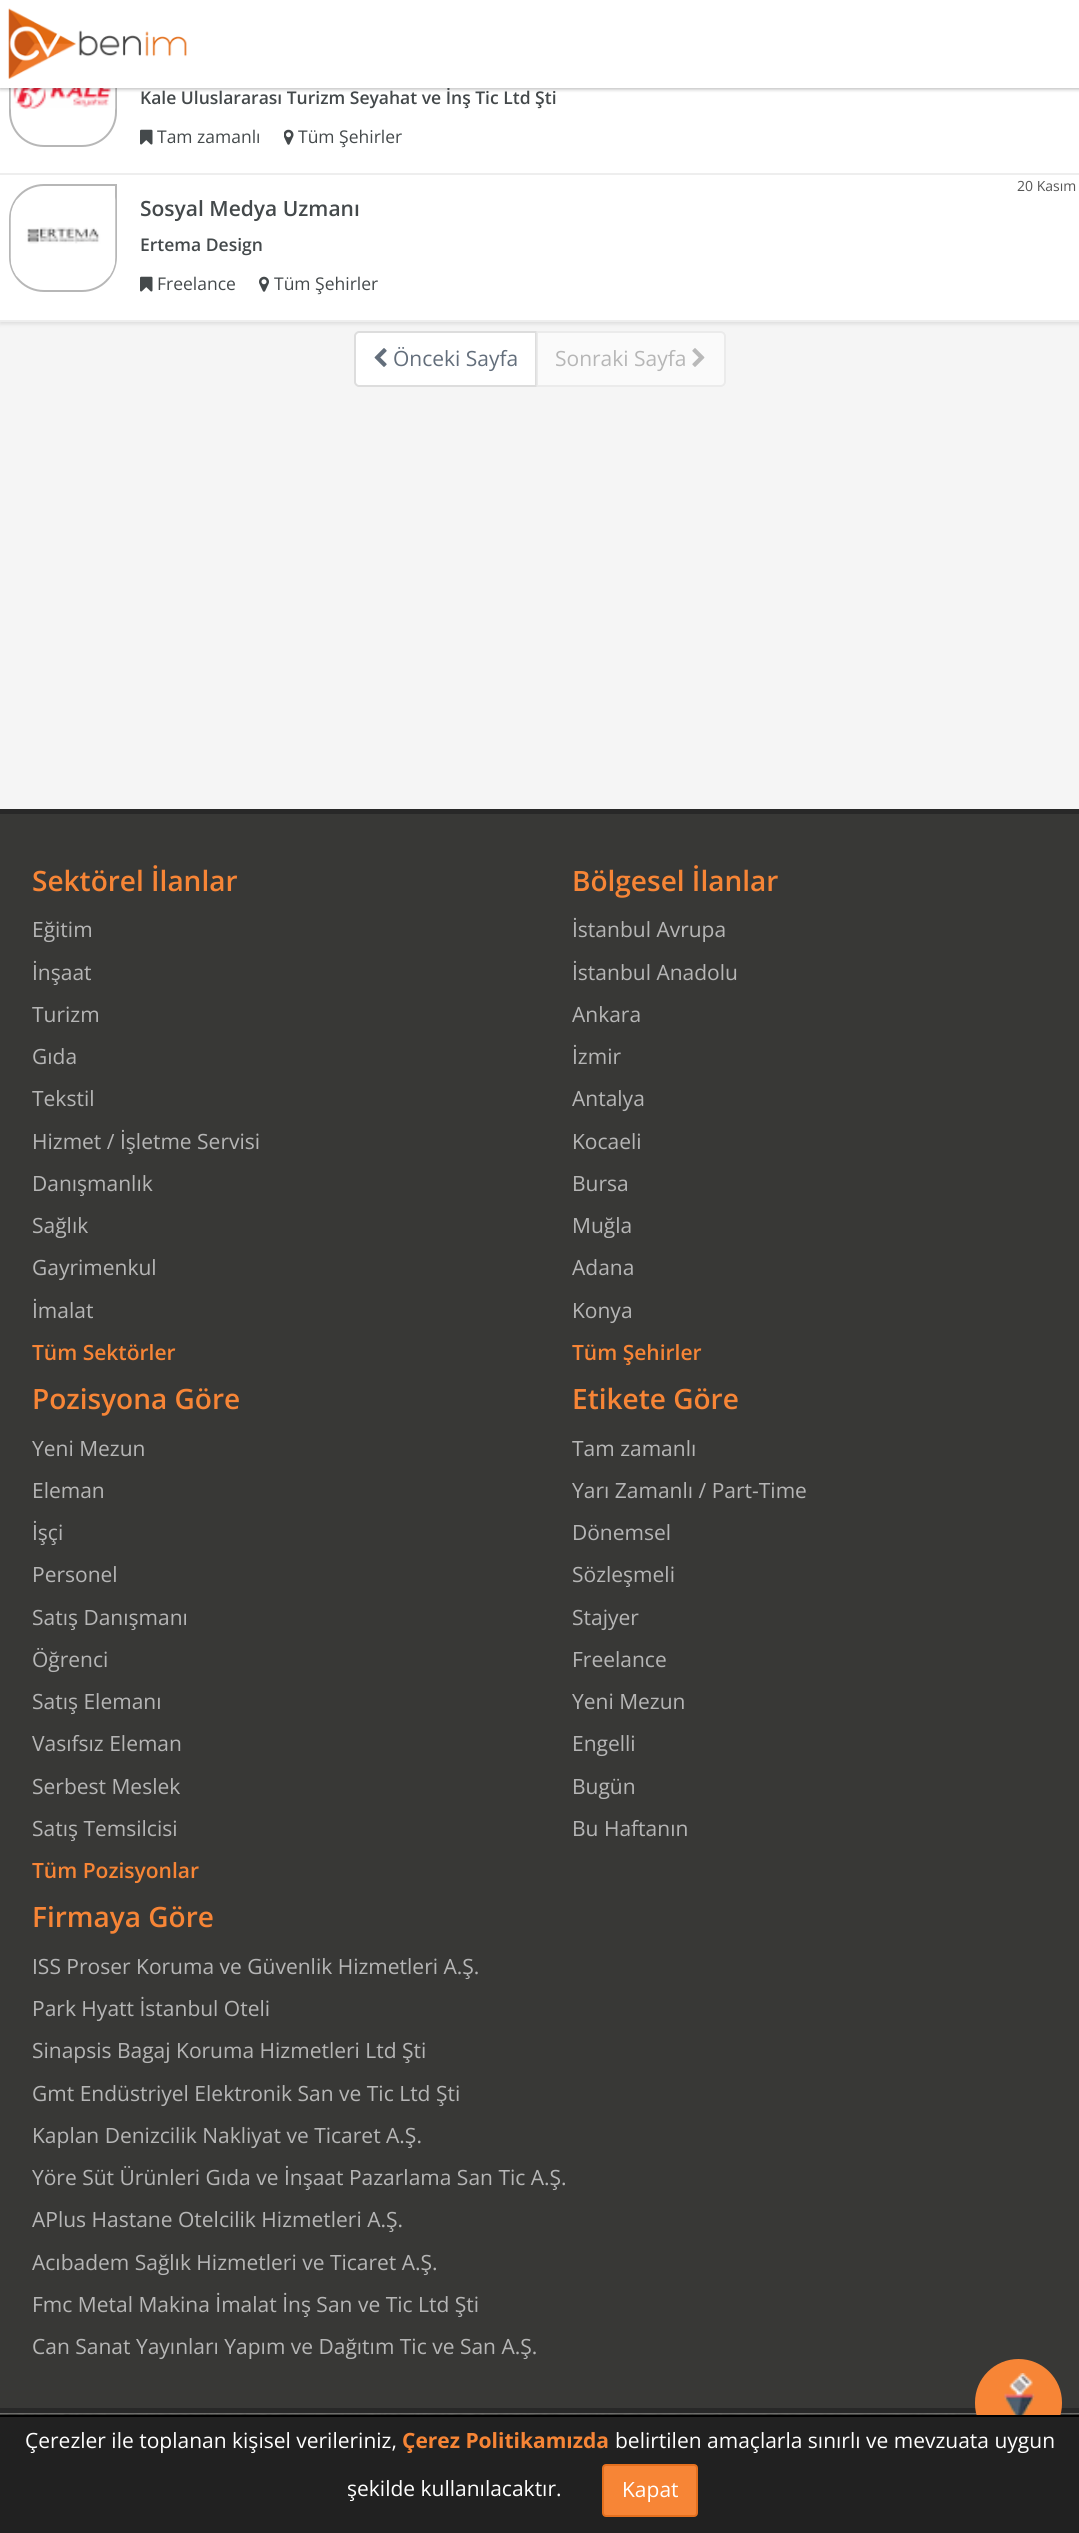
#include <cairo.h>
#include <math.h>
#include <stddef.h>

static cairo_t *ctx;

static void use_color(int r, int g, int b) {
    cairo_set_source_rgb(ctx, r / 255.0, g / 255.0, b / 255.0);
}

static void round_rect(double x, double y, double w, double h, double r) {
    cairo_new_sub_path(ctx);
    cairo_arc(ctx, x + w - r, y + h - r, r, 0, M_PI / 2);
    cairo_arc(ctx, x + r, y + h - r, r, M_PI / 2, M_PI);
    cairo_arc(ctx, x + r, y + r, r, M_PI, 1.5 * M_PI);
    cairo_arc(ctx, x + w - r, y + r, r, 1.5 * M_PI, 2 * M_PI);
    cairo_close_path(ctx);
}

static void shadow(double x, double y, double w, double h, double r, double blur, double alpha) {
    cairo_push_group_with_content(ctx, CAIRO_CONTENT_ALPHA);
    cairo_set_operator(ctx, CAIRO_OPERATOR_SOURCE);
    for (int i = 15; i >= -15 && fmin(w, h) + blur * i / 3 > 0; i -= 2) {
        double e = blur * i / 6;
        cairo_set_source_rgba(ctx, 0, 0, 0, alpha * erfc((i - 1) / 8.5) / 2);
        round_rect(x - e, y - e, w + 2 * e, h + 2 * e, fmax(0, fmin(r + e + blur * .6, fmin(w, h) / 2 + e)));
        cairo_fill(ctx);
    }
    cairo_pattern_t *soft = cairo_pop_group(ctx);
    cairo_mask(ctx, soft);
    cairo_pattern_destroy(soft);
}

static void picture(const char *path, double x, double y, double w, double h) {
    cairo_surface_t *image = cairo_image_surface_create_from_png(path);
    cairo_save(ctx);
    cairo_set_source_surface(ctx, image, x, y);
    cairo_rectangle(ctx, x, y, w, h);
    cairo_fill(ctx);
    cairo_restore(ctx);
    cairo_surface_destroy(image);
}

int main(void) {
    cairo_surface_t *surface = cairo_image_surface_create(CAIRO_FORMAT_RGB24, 1079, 2533);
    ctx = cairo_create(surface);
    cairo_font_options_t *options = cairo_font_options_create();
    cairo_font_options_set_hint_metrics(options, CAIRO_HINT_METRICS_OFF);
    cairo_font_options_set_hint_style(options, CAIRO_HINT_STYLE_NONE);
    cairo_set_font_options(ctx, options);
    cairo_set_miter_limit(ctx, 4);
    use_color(245, 245, 245);
    cairo_paint(ctx);
    use_color(0, 0, 0);
    shadow(0, -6, 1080, 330, 0, 2, 0.1);
    use_color(255, 255, 255);
    cairo_rectangle(ctx, 0, 88, 1079, 232);
    cairo_fill(ctx);
    cairo_new_path(ctx);
    cairo_move_to(ctx, 44, 40);
    cairo_line_to(ctx, 116, 40);
    cairo_line_to(ctx, 116, 112);
    cairo_curve_to(ctx, 116, 131, 101, 146, 82, 146);
    cairo_line_to(ctx, 44, 146);
    cairo_curve_to(ctx, 25, 146, 10, 131, 10, 112);
    cairo_line_to(ctx, 10, 74);
    cairo_curve_to(ctx, 10, 55, 25, 40, 44, 40);
    cairo_close_path(ctx);
    use_color(183, 183, 183);
    cairo_stroke(ctx);
    picture("img2.png", 10, 88, 106, 22);
    use_color(0, 0, 0);
    shadow(0, 2, 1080, 87, 0, 2, 0.3);
    cairo_select_font_face(ctx, "Open Sans SemiBold", CAIRO_FONT_SLANT_NORMAL, CAIRO_FONT_WEIGHT_NORMAL);
    cairo_set_font_size(ctx, 17.5);
    use_color(68, 73, 75);
    cairo_move_to(ctx, 140, 104);
    cairo_show_text(ctx, "Kale Uluslararası Turizm Seyahat ve İnş Tic Ltd Şti");
    use_color(255, 255, 255);
    cairo_rectangle(ctx, 0, 0, 1079, 88);
    cairo_fill(ctx);
    picture("img1.png", 8, 8, 179, 71);
    use_color(238, 238, 238);
    cairo_rectangle(ctx, 0, 173, 1079, 2);
    cairo_fill(ctx);
    picture("img3.png", 140, 129, 13, 16);
    cairo_select_font_face(ctx, "Open Sans", CAIRO_FONT_SLANT_NORMAL, CAIRO_FONT_WEIGHT_NORMAL);
    use_color(68, 73, 75);
    cairo_move_to(ctx, 157, 143);
    cairo_show_text(ctx, "Tam zamanlı");
    picture("img4.png", 284, 129, 10, 16);
    cairo_move_to(ctx, 298, 143);
    cairo_show_text(ctx, "Tüm Şehirler");
    use_color(238, 238, 238);
    cairo_rectangle(ctx, 0, 320, 1079, 2);
    cairo_fill(ctx);
    cairo_new_path(ctx);
    cairo_move_to(ctx, 44, 185);
    cairo_line_to(ctx, 116, 185);
    cairo_line_to(ctx, 116, 257);
    cairo_curve_to(ctx, 116, 276, 101, 291, 82, 291);
    cairo_line_to(ctx, 44, 291);
    cairo_curve_to(ctx, 25, 291, 10, 276, 10, 257);
    cairo_line_to(ctx, 10, 219);
    cairo_curve_to(ctx, 10, 200, 25, 185, 44, 185);
    cairo_close_path(ctx);
    use_color(183, 183, 183);
    cairo_stroke(ctx);
    picture("img5.png", 10, 197, 106, 82);
    cairo_select_font_face(ctx, "Open Sans SemiBold", CAIRO_FONT_SLANT_NORMAL, CAIRO_FONT_WEIGHT_NORMAL);
    cairo_set_font_size(ctx, 21);
    use_color(68, 73, 75);
    cairo_move_to(ctx, 140, 216);
    cairo_show_text(ctx, "Sosyal Medya Uzmanı");
    cairo_set_font_size(ctx, 17.5);
    cairo_move_to(ctx, 140, 251);
    cairo_show_text(ctx, "Ertema Design");
    picture("img3.png", 140, 276, 13, 16);
    cairo_select_font_face(ctx, "Open Sans", CAIRO_FONT_SLANT_NORMAL, CAIRO_FONT_WEIGHT_NORMAL);
    cairo_move_to(ctx, 157, 290);
    cairo_show_text(ctx, "Freelance");
    picture("img6.png", 259, 276, 10, 16);
    cairo_move_to(ctx, 274, 290);
    cairo_show_text(ctx, "Tüm Şehirler");
    cairo_set_font_size(ctx, 14);
    use_color(86, 86, 86);
    cairo_move_to(ctx, 1017, 191);
    cairo_show_text(ctx, "20 Kasım");
    use_color(255, 255, 255);
    cairo_new_path(ctx);
    cairo_move_to(ctx, 359, 332);
    cairo_line_to(ctx, 536, 332);
    cairo_line_to(ctx, 536, 386);
    cairo_line_to(ctx, 359, 386);
    cairo_curve_to(ctx, 357, 386, 355, 384, 355, 382);
    cairo_line_to(ctx, 355, 336);
    cairo_curve_to(ctx, 355, 334, 357, 332, 359, 332);
    cairo_close_path(ctx);
    cairo_fill_preserve(ctx);
    use_color(221, 221, 221);
    cairo_stroke(ctx);
    picture("img7.png", 374, 348, 13, 19);
    cairo_set_font_size(ctx, 21);
    use_color(99, 110, 123);
    cairo_move_to(ctx, 393, 366);
    cairo_show_text(ctx, "Önceki Sayfa");
    cairo_set_source_rgba(ctx, 1, 1, 1, 0.5);
    cairo_new_path(ctx);
    cairo_move_to(ctx, 536, 331);
    cairo_line_to(ctx, 721, 331);
    cairo_curve_to(ctx, 724, 331, 726, 333, 726, 336);
    cairo_line_to(ctx, 726, 382);
    cairo_curve_to(ctx, 726, 385, 724, 387, 721, 387);
    cairo_line_to(ctx, 536, 387);
    cairo_close_path(ctx);
    cairo_fill(ctx);
    cairo_new_path(ctx);
    cairo_move_to(ctx, 537, 332);
    cairo_line_to(ctx, 721, 332);
    cairo_curve_to(ctx, 723, 332, 725, 334, 725, 336);
    cairo_line_to(ctx, 725, 382);
    cairo_curve_to(ctx, 725, 384, 723, 386, 721, 386);
    cairo_line_to(ctx, 537, 386);
    cairo_close_path(ctx);
    cairo_set_source_rgba(ctx, 0.867, 0.867, 0.867, 0.5);
    cairo_stroke(ctx);
    use_color(182, 182, 182);
    cairo_move_to(ctx, 555, 366);
    cairo_show_text(ctx, "Sonraki Sayfa");
    picture("img8.png", 692, 348, 13, 19);
    use_color(56, 56, 54);
    cairo_rectangle(ctx, 0, 814, 1079, 1594);
    cairo_fill(ctx);
    use_color(40, 40, 40);
    cairo_rectangle(ctx, 0, 2408, 1079, 5);
    cairo_fill(ctx);
    picture("img10.png", 0, 2413, 1079, 2);
    use_color(247, 133, 54);
    round_rect(975, 2359, 87, 88, 43.5);
    cairo_fill(ctx);
    picture("img9.png", 1004, 2373, 31, 42);
    use_color(40, 40, 40);
    cairo_rectangle(ctx, 0, 809, 1079, 5);
    cairo_fill(ctx);
    cairo_select_font_face(ctx, "Open Sans SemiBold", CAIRO_FONT_SLANT_NORMAL, CAIRO_FONT_WEIGHT_NORMAL);
    cairo_set_font_size(ctx, 28);
    use_color(247, 133, 54);
    cairo_move_to(ctx, 32, 891);
    cairo_show_text(ctx, "Sektörel İlanlar");
    cairo_select_font_face(ctx, "Open Sans", CAIRO_FONT_SLANT_NORMAL, CAIRO_FONT_WEIGHT_NORMAL);
    cairo_set_font_size(ctx, 21);
    use_color(182, 182, 182);
    cairo_move_to(ctx, 32, 937);
    cairo_show_text(ctx, "Eğitim");
    cairo_move_to(ctx, 32, 980);
    cairo_show_text(ctx, "İnşaat");
    cairo_move_to(ctx, 32, 1022);
    cairo_show_text(ctx, "Turizm");
    cairo_move_to(ctx, 32, 1064);
    cairo_show_text(ctx, "Gıda");
    cairo_move_to(ctx, 32, 1106);
    cairo_show_text(ctx, "Tekstil");
    cairo_move_to(ctx, 32, 1149);
    cairo_show_text(ctx, "Hizmet / İşletme Servisi");
    cairo_move_to(ctx, 32, 1191);
    cairo_show_text(ctx, "Danışmanlık");
    cairo_move_to(ctx, 32, 1233);
    cairo_show_text(ctx, "Sağlık");
    cairo_move_to(ctx, 32, 1275);
    cairo_show_text(ctx, "Gayrimenkul");
    cairo_move_to(ctx, 32, 1318);
    cairo_show_text(ctx, "İmalat");
    cairo_select_font_face(ctx, "Open Sans SemiBold", CAIRO_FONT_SLANT_NORMAL, CAIRO_FONT_WEIGHT_NORMAL);
    use_color(247, 133, 54);
    cairo_move_to(ctx, 32, 1360);
    cairo_show_text(ctx, "Tüm Sektörler");
    cairo_set_font_size(ctx, 28);
    cairo_move_to(ctx, 572, 891);
    cairo_show_text(ctx, "Bölgesel İlanlar");
    cairo_select_font_face(ctx, "Open Sans", CAIRO_FONT_SLANT_NORMAL, CAIRO_FONT_WEIGHT_NORMAL);
    cairo_set_font_size(ctx, 21);
    use_color(182, 182, 182);
    cairo_move_to(ctx, 572, 937);
    cairo_show_text(ctx, "İstanbul Avrupa");
    cairo_move_to(ctx, 572, 980);
    cairo_show_text(ctx, "İstanbul Anadolu");
    cairo_move_to(ctx, 572, 1022);
    cairo_show_text(ctx, "Ankara");
    cairo_move_to(ctx, 572, 1064);
    cairo_show_text(ctx, "İzmir");
    cairo_move_to(ctx, 572, 1106);
    cairo_show_text(ctx, "Antalya");
    cairo_move_to(ctx, 572, 1149);
    cairo_show_text(ctx, "Kocaeli");
    cairo_move_to(ctx, 572, 1191);
    cairo_show_text(ctx, "Bursa");
    cairo_move_to(ctx, 572, 1233);
    cairo_show_text(ctx, "Muğla");
    cairo_move_to(ctx, 572, 1275);
    cairo_show_text(ctx, "Adana");
    cairo_move_to(ctx, 572, 1318);
    cairo_show_text(ctx, "Konya");
    cairo_select_font_face(ctx, "Open Sans SemiBold", CAIRO_FONT_SLANT_NORMAL, CAIRO_FONT_WEIGHT_NORMAL);
    use_color(247, 133, 54);
    cairo_move_to(ctx, 572, 1360);
    cairo_show_text(ctx, "Tüm Şehirler");
    cairo_set_font_size(ctx, 28);
    cairo_move_to(ctx, 32, 1409);
    cairo_show_text(ctx, "Pozisyona Göre");
    cairo_select_font_face(ctx, "Open Sans", CAIRO_FONT_SLANT_NORMAL, CAIRO_FONT_WEIGHT_NORMAL);
    cairo_set_font_size(ctx, 21);
    use_color(182, 182, 182);
    cairo_move_to(ctx, 32, 1456);
    cairo_show_text(ctx, "Yeni Mezun");
    cairo_move_to(ctx, 32, 1498);
    cairo_show_text(ctx, "Eleman");
    cairo_move_to(ctx, 32, 1540);
    cairo_show_text(ctx, "İşçi");
    cairo_move_to(ctx, 32, 1582);
    cairo_show_text(ctx, "Personel");
    cairo_move_to(ctx, 32, 1625);
    cairo_show_text(ctx, "Satış Danışmanı");
    cairo_move_to(ctx, 32, 1667);
    cairo_show_text(ctx, "Öğrenci");
    cairo_move_to(ctx, 32, 1709);
    cairo_show_text(ctx, "Satış Elemanı");
    cairo_move_to(ctx, 32, 1751);
    cairo_show_text(ctx, "Vasıfsız Eleman");
    cairo_move_to(ctx, 32, 1794);
    cairo_show_text(ctx, "Serbest Meslek");
    cairo_move_to(ctx, 32, 1836);
    cairo_show_text(ctx, "Satış Temsilcisi");
    cairo_select_font_face(ctx, "Open Sans SemiBold", CAIRO_FONT_SLANT_NORMAL, CAIRO_FONT_WEIGHT_NORMAL);
    use_color(247, 133, 54);
    cairo_move_to(ctx, 32, 1878);
    cairo_show_text(ctx, "Tüm Pozisyonlar");
    cairo_set_font_size(ctx, 28);
    cairo_move_to(ctx, 572, 1409);
    cairo_show_text(ctx, "Etikete Göre");
    cairo_select_font_face(ctx, "Open Sans", CAIRO_FONT_SLANT_NORMAL, CAIRO_FONT_WEIGHT_NORMAL);
    cairo_set_font_size(ctx, 21);
    use_color(182, 182, 182);
    cairo_move_to(ctx, 572, 1456);
    cairo_show_text(ctx, "Tam zamanlı");
    cairo_move_to(ctx, 572, 1498);
    cairo_show_text(ctx, "Yarı Zamanlı / Part-Time");
    cairo_move_to(ctx, 572, 1540);
    cairo_show_text(ctx, "Dönemsel");
    cairo_move_to(ctx, 572, 1582);
    cairo_show_text(ctx, "Sözleşmeli");
    cairo_move_to(ctx, 572, 1625);
    cairo_show_text(ctx, "Stajyer");
    cairo_move_to(ctx, 572, 1667);
    cairo_show_text(ctx, "Freelance");
    cairo_move_to(ctx, 572, 1709);
    cairo_show_text(ctx, "Yeni Mezun");
    cairo_move_to(ctx, 572, 1751);
    cairo_show_text(ctx, "Engelli");
    cairo_move_to(ctx, 572, 1794);
    cairo_show_text(ctx, "Bugün");
    cairo_move_to(ctx, 572, 1836);
    cairo_show_text(ctx, "Bu Haftanın");
    cairo_select_font_face(ctx, "Open Sans SemiBold", CAIRO_FONT_SLANT_NORMAL, CAIRO_FONT_WEIGHT_NORMAL);
    cairo_set_font_size(ctx, 28);
    use_color(247, 133, 54);
    cairo_move_to(ctx, 32, 1927);
    cairo_show_text(ctx, "Firmaya Göre");
    cairo_select_font_face(ctx, "Open Sans", CAIRO_FONT_SLANT_NORMAL, CAIRO_FONT_WEIGHT_NORMAL);
    cairo_set_font_size(ctx, 21);
    use_color(182, 182, 182);
    cairo_move_to(ctx, 32, 1974);
    cairo_show_text(ctx, "ISS Proser Koruma ve Güvenlik Hizmetleri A.Ş.");
    cairo_move_to(ctx, 32, 2016);
    cairo_show_text(ctx, "Park Hyatt İstanbul Oteli");
    cairo_move_to(ctx, 32, 2058);
    cairo_show_text(ctx, "Sinapsis Bagaj Koruma Hizmetleri Ltd Şti");
    cairo_move_to(ctx, 32, 2101);
    cairo_show_text(ctx, "Gmt Endüstriyel Elektronik San ve Tic Ltd Şti");
    cairo_move_to(ctx, 32, 2143);
    cairo_show_text(ctx, "Kaplan Denizcilik Nakliyat ve Ticaret A.Ş.");
    cairo_move_to(ctx, 32, 2185);
    cairo_show_text(ctx, "Yöre Süt Ürünleri Gıda ve İnşaat Pazarlama San Tic A.Ş.");
    cairo_move_to(ctx, 32, 2227);
    cairo_show_text(ctx, "APlus Hastane Otelcilik Hizmetleri A.Ş.");
    cairo_move_to(ctx, 32, 2270);
    cairo_show_text(ctx, "Acıbadem Sağlık Hizmetleri ve Ticaret A.Ş.");
    cairo_move_to(ctx, 32, 2312);
    cairo_show_text(ctx, "Fmc Metal Makina İmalat İnş San ve Tic Ltd Şti");
    cairo_move_to(ctx, 32, 2354);
    cairo_show_text(ctx, "Can Sanat Yayınları Yapım ve Dağıtım Tic ve San A.Ş.");
    use_color(33, 33, 33);
    cairo_rectangle(ctx, 0, 2417, 1079, 116);
    cairo_fill(ctx);
    use_color(0, 0, 0);
    cairo_rectangle(ctx, 0, 2415, 1079, 2);
    cairo_fill(ctx);
    use_color(255, 255, 255);
    cairo_move_to(ctx, 25, 2448);
    cairo_show_text(ctx, "Çerezler ile toplanan kişisel verileriniz,");
    cairo_select_font_face(ctx, "Open Sans", CAIRO_FONT_SLANT_NORMAL, CAIRO_FONT_WEIGHT_BOLD);
    use_color(247, 133, 54);
    cairo_move_to(ctx, 402, 2448);
    cairo_show_text(ctx, "Çerez Politikamızda");
    cairo_select_font_face(ctx, "Open Sans", CAIRO_FONT_SLANT_NORMAL, CAIRO_FONT_WEIGHT_NORMAL);
    use_color(255, 255, 255);
    cairo_move_to(ctx, 615, 2448);
    cairo_show_text(ctx, "belirtilen amaçlarla sınırlı ve mevzuata uygun");
    cairo_move_to(ctx, 347, 2496);
    cairo_show_text(ctx, "şekilde kullanılacaktır.");
    use_color(247, 133, 54);
    round_rect(603, 2465, 94, 51, 3);
    cairo_fill_preserve(ctx);
    use_color(228, 112, 31);
    cairo_stroke(ctx);
    use_color(255, 255, 255);
    cairo_move_to(ctx, 622, 2497);
    cairo_show_text(ctx, "Kapat");
    cairo_surface_write_to_png(surface, "result.png");
    cairo_font_options_destroy(options);
    cairo_destroy(ctx);
    cairo_surface_destroy(surface);
    return 0;
}
